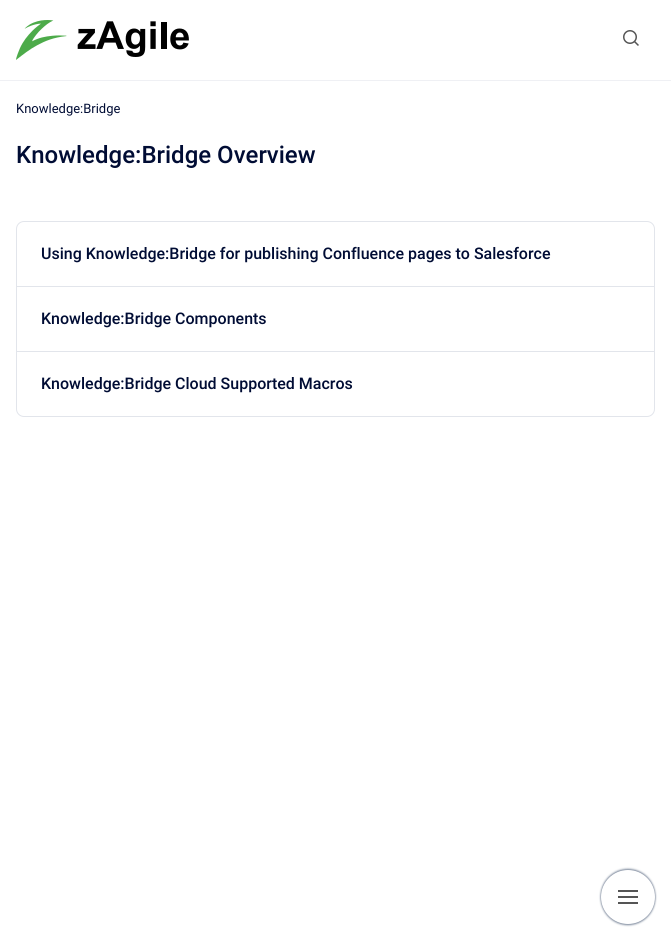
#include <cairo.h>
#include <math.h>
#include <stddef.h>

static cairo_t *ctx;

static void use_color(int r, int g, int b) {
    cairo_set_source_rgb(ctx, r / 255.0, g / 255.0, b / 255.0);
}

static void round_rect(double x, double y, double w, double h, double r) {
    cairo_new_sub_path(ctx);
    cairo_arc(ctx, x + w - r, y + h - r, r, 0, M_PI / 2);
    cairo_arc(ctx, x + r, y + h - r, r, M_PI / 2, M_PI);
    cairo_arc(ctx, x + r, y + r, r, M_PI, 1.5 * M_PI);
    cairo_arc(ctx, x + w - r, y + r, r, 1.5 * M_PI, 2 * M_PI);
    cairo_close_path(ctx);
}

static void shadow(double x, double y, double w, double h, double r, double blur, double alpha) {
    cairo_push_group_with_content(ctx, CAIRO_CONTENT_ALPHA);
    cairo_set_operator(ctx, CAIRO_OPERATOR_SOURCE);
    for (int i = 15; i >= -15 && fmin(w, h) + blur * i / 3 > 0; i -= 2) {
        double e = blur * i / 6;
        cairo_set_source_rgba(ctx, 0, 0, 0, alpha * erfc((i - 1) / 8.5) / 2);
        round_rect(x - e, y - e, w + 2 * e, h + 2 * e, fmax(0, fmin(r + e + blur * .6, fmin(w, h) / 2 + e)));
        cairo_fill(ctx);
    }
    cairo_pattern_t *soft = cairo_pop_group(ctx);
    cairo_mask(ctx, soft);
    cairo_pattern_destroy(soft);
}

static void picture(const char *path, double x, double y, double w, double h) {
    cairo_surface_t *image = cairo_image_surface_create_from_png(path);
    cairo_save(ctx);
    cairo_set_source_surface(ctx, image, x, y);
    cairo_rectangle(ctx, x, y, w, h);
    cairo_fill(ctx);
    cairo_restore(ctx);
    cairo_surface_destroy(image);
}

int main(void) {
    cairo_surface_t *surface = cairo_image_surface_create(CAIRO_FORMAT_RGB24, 671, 940);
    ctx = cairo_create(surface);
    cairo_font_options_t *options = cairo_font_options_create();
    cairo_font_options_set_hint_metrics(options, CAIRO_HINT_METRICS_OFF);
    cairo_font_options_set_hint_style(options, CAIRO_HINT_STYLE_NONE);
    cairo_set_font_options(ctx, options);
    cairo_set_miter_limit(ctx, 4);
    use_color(255, 255, 255);
    cairo_paint(ctx);
    use_color(239, 240, 244);
    cairo_rectangle(ctx, 0, 80, 671, 1);
    cairo_fill(ctx);
    picture("img1.png", 16, 20, 173, 40);
    picture("img2.png", 623, 30, 16, 16);
    cairo_select_font_face(ctx, "Roboto", CAIRO_FONT_SLANT_NORMAL, CAIRO_FONT_WEIGHT_NORMAL);
    cairo_set_font_size(ctx, 13);
    use_color(0, 12, 52);
    cairo_move_to(ctx, 16, 113);
    cairo_show_text(ctx, "Knowledge:Bridge");
    cairo_select_font_face(ctx, "Roboto Medium", CAIRO_FONT_SLANT_NORMAL, CAIRO_FONT_WEIGHT_NORMAL);
    cairo_set_font_size(ctx, 24);
    cairo_move_to(ctx, 16, 163);
    cairo_show_text(ctx, "Knowledge:Bridge Overview");
    round_rect(16.5, 221.5, 638, 195, 7.5);
    use_color(226, 229, 235);
    cairo_set_line_width(ctx, 1);
    cairo_stroke(ctx);
    cairo_set_font_size(ctx, 16);
    use_color(0, 12, 52);
    cairo_move_to(ctx, 41, 259);
    cairo_show_text(ctx, "Using Knowledge:Bridge for publishing Confluence pages to Salesforce");
    use_color(226, 229, 235);
    cairo_rectangle(ctx, 17, 286, 637, 1);
    cairo_fill(ctx);
    use_color(0, 12, 52);
    cairo_move_to(ctx, 41, 324);
    cairo_show_text(ctx, "Knowledge:Bridge Components");
    use_color(226, 229, 235);
    cairo_rectangle(ctx, 17, 351, 637, 1);
    cairo_fill(ctx);
    use_color(0, 12, 52);
    cairo_move_to(ctx, 41, 389);
    cairo_show_text(ctx, "Knowledge:Bridge Cloud Supported Macros");
    use_color(122, 134, 154);
    shadow(601, 869, 54, 54, 27, 1, 1);
    shadow(601, 871, 54, 54, 27, 1, 1);
    use_color(255, 255, 255);
    cairo_arc(ctx, 628, 897, 27, 0, 2 * M_PI);
    cairo_fill(ctx);
    use_color(85, 85, 85);
    cairo_rectangle(ctx, 618, 890, 20, 2);
    cairo_fill(ctx);
    cairo_rectangle(ctx, 618, 896, 20, 2);
    cairo_fill(ctx);
    cairo_rectangle(ctx, 618, 902, 20, 2);
    cairo_fill(ctx);
    cairo_surface_write_to_png(surface, "result.png");
    cairo_font_options_destroy(options);
    cairo_destroy(ctx);
    cairo_surface_destroy(surface);
    return 0;
}
